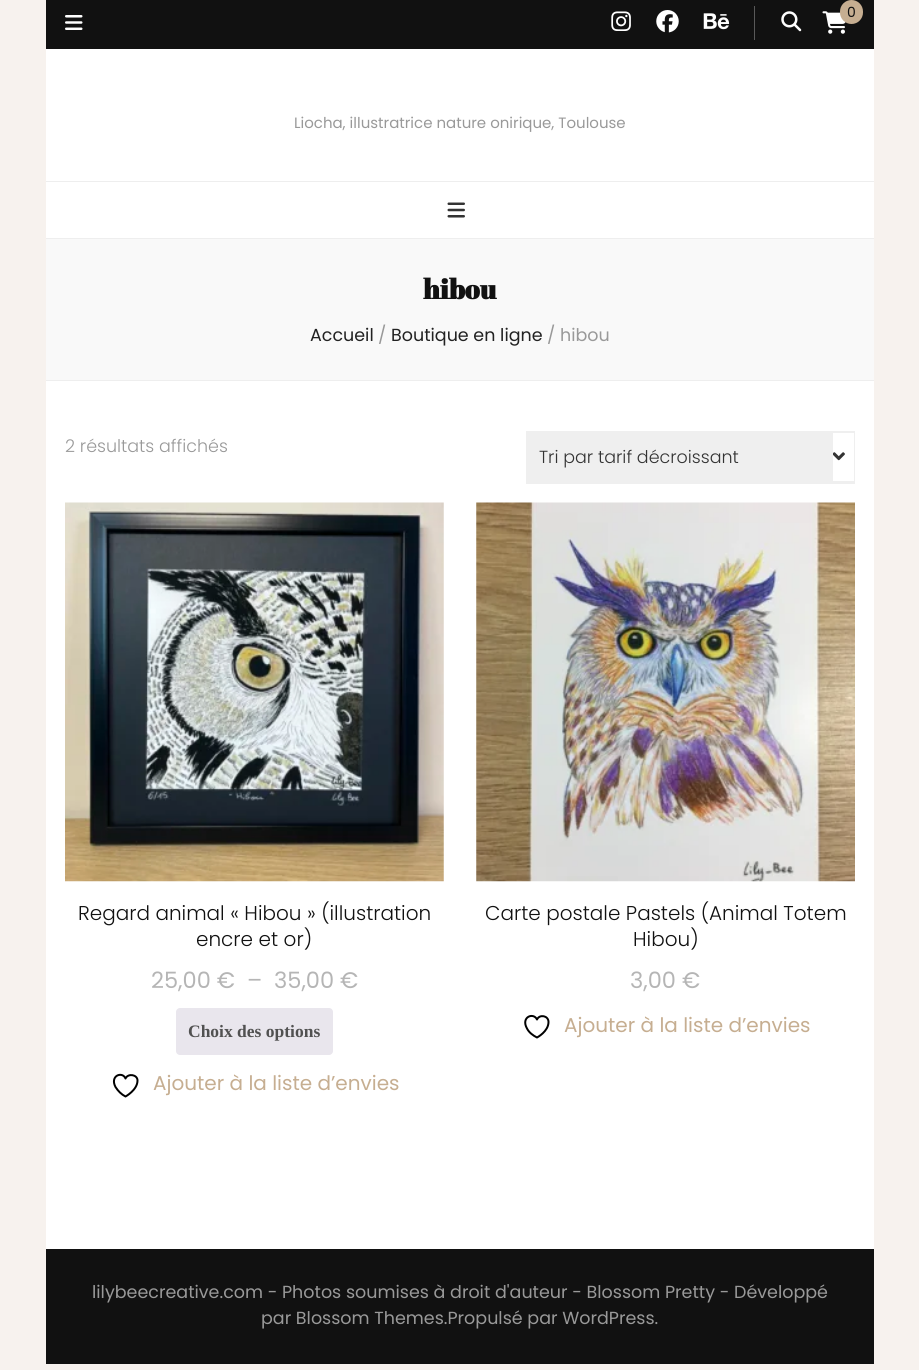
#include <cairo.h>
#include <math.h>
#include <stddef.h>

static cairo_t *ctx;

static void use_color(int r, int g, int b) {
    cairo_set_source_rgb(ctx, r / 255.0, g / 255.0, b / 255.0);
}

static void round_rect(double x, double y, double w, double h, double r) {
    cairo_new_sub_path(ctx);
    cairo_arc(ctx, x + w - r, y + h - r, r, 0, M_PI / 2);
    cairo_arc(ctx, x + r, y + h - r, r, M_PI / 2, M_PI);
    cairo_arc(ctx, x + r, y + r, r, M_PI, 1.5 * M_PI);
    cairo_arc(ctx, x + w - r, y + r, r, 1.5 * M_PI, 2 * M_PI);
    cairo_close_path(ctx);
}

static void picture(const char *path, double x, double y, double w, double h) {
    cairo_surface_t *image = cairo_image_surface_create_from_png(path);
    cairo_save(ctx);
    cairo_set_source_surface(ctx, image, x, y);
    cairo_rectangle(ctx, x, y, w, h);
    cairo_fill(ctx);
    cairo_restore(ctx);
    cairo_surface_destroy(image);
}

int main(void) {
    cairo_surface_t *surface = cairo_image_surface_create(CAIRO_FORMAT_RGB24, 919, 1370);
    ctx = cairo_create(surface);
    cairo_font_options_t *options = cairo_font_options_create();
    cairo_font_options_set_hint_metrics(options, CAIRO_HINT_METRICS_OFF);
    cairo_font_options_set_hint_style(options, CAIRO_HINT_STYLE_NONE);
    cairo_set_font_options(ctx, options);
    cairo_set_miter_limit(ctx, 4);
    use_color(247, 242, 238);
    cairo_paint(ctx);
    use_color(255, 255, 255);
    cairo_rectangle(ctx, 46, 49, 828, 1200);
    cairo_fill(ctx);
    use_color(17, 17, 17);
    cairo_rectangle(ctx, 46, 0, 828, 49);
    cairo_fill(ctx);
    use_color(89, 89, 89);
    cairo_rectangle(ctx, 754, 6, 1, 34);
    cairo_fill(ctx);
    picture("img1.png", 611, 11, 20, 20);
    picture("img2.png", 656, 10, 23, 23);
    picture("img3.png", 703, 13, 27, 17);
    picture("img4.png", 781, 11, 21, 21);
    picture("img5.png", 822, 11, 24, 23);
    use_color(198, 174, 145);
    round_rect(840, 0, 23, 24, 11.5);
    cairo_fill(ctx);
    cairo_select_font_face(ctx, "Poppins", CAIRO_FONT_SLANT_NORMAL, CAIRO_FONT_WEIGHT_NORMAL);
    cairo_set_font_size(ctx, 14);
    use_color(17, 17, 17);
    cairo_move_to(ctx, 847, 17);
    cairo_show_text(ctx, "0");
    picture("img6.png", 65, 15, 18, 15);
    cairo_set_font_size(ctx, 15);
    use_color(153, 153, 153);
    cairo_move_to(ctx, 294, 128);
    cairo_show_text(ctx, "Liocha, illustratrice nature onirique, Toulouse");
    use_color(238, 238, 238);
    cairo_rectangle(ctx, 46, 181, 828, 1);
    cairo_fill(ctx);
    cairo_rectangle(ctx, 46, 238, 828, 1);
    cairo_fill(ctx);
    picture("img7.png", 447, 202, 18, 16);
    use_color(249, 249, 249);
    cairo_rectangle(ctx, 46, 239, 828, 141);
    cairo_fill(ctx);
    use_color(238, 238, 238);
    cairo_rectangle(ctx, 46, 380, 828, 1);
    cairo_fill(ctx);
    cairo_select_font_face(ctx, "Abril Fatface", CAIRO_FONT_SLANT_NORMAL, CAIRO_FONT_WEIGHT_BOLD);
    cairo_set_font_size(ctx, 27.5);
    use_color(17, 17, 17);
    cairo_move_to(ctx, 423, 299);
    cairo_show_text(ctx, "hibou");
    cairo_select_font_face(ctx, "Poppins", CAIRO_FONT_SLANT_NORMAL, CAIRO_FONT_WEIGHT_NORMAL);
    cairo_set_font_size(ctx, 17.5);
    use_color(34, 34, 34);
    cairo_move_to(ctx, 310, 341);
    cairo_show_text(ctx, "Accueil");
    use_color(153, 153, 153);
    cairo_move_to(ctx, 378, 341);
    cairo_show_text(ctx, "/");
    use_color(34, 34, 34);
    cairo_move_to(ctx, 391, 341);
    cairo_show_text(ctx, "Boutique en ligne");
    use_color(153, 153, 153);
    cairo_move_to(ctx, 547, 341);
    cairo_show_text(ctx, "/ hibou");
    cairo_select_font_face(ctx, "Poppins Light", CAIRO_FONT_SLANT_NORMAL, CAIRO_FONT_WEIGHT_NORMAL);
    cairo_move_to(ctx, 65, 452);
    cairo_show_text(ctx, "2 résultats affichés");
    use_color(239, 239, 239);
    cairo_rectangle(ctx, 526, 431, 329, 53);
    cairo_fill(ctx);
    use_color(51, 51, 51);
    cairo_move_to(ctx, 539, 463);
    cairo_show_text(ctx, "Tri par tarif décroissant");
    use_color(255, 255, 255);
    cairo_rectangle(ctx, 833, 433, 21, 48);
    cairo_fill(ctx);
    picture("img8.png", 833, 452, 12, 9);
    picture("img9.png", 65, 502, 379, 380);
    cairo_set_font_size(ctx, 20);
    use_color(17, 17, 17);
    cairo_move_to(ctx, 78, 920);
    cairo_show_text(ctx, "Regard animal « Hibou » (illustration");
    cairo_move_to(ctx, 196, 946);
    cairo_show_text(ctx, "encre et or)");
    cairo_select_font_face(ctx, "Poppins", CAIRO_FONT_SLANT_NORMAL, CAIRO_FONT_WEIGHT_NORMAL);
    cairo_set_font_size(ctx, 22.5);
    use_color(181, 181, 181);
    cairo_move_to(ctx, 151, 988);
    cairo_show_text(ctx, "25,00 €");
    cairo_move_to(ctx, 247, 988);
    cairo_show_text(ctx, "–");
    cairo_move_to(ctx, 274, 988);
    cairo_show_text(ctx, "35,00 €");
    use_color(233, 230, 237);
    round_rect(176, 1008, 157, 47, 4);
    cairo_fill(ctx);
    cairo_select_font_face(ctx, "Liberation Serif", CAIRO_FONT_SLANT_NORMAL, CAIRO_FONT_WEIGHT_BOLD);
    cairo_set_font_size(ctx, 17.5);
    use_color(81, 81, 81);
    cairo_move_to(ctx, 188, 1037);
    cairo_show_text(ctx, "Choix des options");
    cairo_new_path(ctx);
    cairo_move_to(ctx, 137.5, 1080.5);
    cairo_curve_to(ctx, 137.5, 1074.5, 128, 1073, 125.5, 1078.5);
    cairo_curve_to(ctx, 122.5, 1071, 109.5, 1075.5, 115.5, 1087);
    cairo_curve_to(ctx, 118, 1091, 121.5, 1094.5, 125.5, 1096.5);
    cairo_curve_to(ctx, 125.5, 1096.5, 137.5, 1090, 137.5, 1080.5);
    cairo_close_path(ctx);
    use_color(0, 0, 0);
    cairo_set_line_cap(ctx, CAIRO_LINE_CAP_ROUND);
    cairo_set_line_join(ctx, CAIRO_LINE_JOIN_ROUND);
    cairo_stroke(ctx);
    cairo_select_font_face(ctx, "Poppins", CAIRO_FONT_SLANT_NORMAL, CAIRO_FONT_WEIGHT_NORMAL);
    cairo_set_font_size(ctx, 20);
    use_color(198, 174, 145);
    cairo_move_to(ctx, 153, 1090);
    cairo_show_text(ctx, "Ajouter à la liste d’envies");
    picture("img10.png", 476, 502, 379, 380);
    cairo_select_font_face(ctx, "Poppins Light", CAIRO_FONT_SLANT_NORMAL, CAIRO_FONT_WEIGHT_NORMAL);
    use_color(17, 17, 17);
    cairo_move_to(ctx, 485, 920);
    cairo_show_text(ctx, "Carte postale Pastels (Animal Totem");
    cairo_move_to(ctx, 633, 946);
    cairo_show_text(ctx, "Hibou)");
    cairo_select_font_face(ctx, "Poppins", CAIRO_FONT_SLANT_NORMAL, CAIRO_FONT_WEIGHT_NORMAL);
    cairo_set_font_size(ctx, 22.5);
    use_color(181, 181, 181);
    cairo_move_to(ctx, 630, 988);
    cairo_show_text(ctx, "3,00 €");
    cairo_new_path(ctx);
    cairo_move_to(ctx, 548.5, 1022);
    cairo_curve_to(ctx, 548.5, 1015.5, 539.5, 1014, 537, 1019.5);
    cairo_curve_to(ctx, 533.5, 1012, 520.5, 1017, 527, 1028.5);
    cairo_curve_to(ctx, 529, 1032.5, 533, 1035.5, 537, 1037.5);
    cairo_curve_to(ctx, 537, 1037.5, 548.5, 1031.5, 548.5, 1022);
    cairo_close_path(ctx);
    use_color(0, 0, 0);
    cairo_stroke(ctx);
    cairo_set_font_size(ctx, 20);
    use_color(198, 174, 145);
    cairo_move_to(ctx, 564, 1032);
    cairo_show_text(ctx, "Ajouter à la liste d’envies");
    use_color(17, 17, 17);
    cairo_rectangle(ctx, 46, 1249, 828, 115);
    cairo_fill(ctx);
    cairo_set_font_size(ctx, 17.5);
    use_color(153, 153, 153);
    cairo_move_to(ctx, 92, 1298);
    cairo_show_text(ctx, "lilybeecreative.com - Photos soumises à droit d'auteur - Blossom Pretty - Développé");
    cairo_move_to(ctx, 261, 1324);
    cairo_show_text(ctx, "par Blossom Themes.Propulsé par WordPress.");
    cairo_surface_write_to_png(surface, "result.png");
    cairo_font_options_destroy(options);
    cairo_destroy(ctx);
    cairo_surface_destroy(surface);
    return 0;
}
